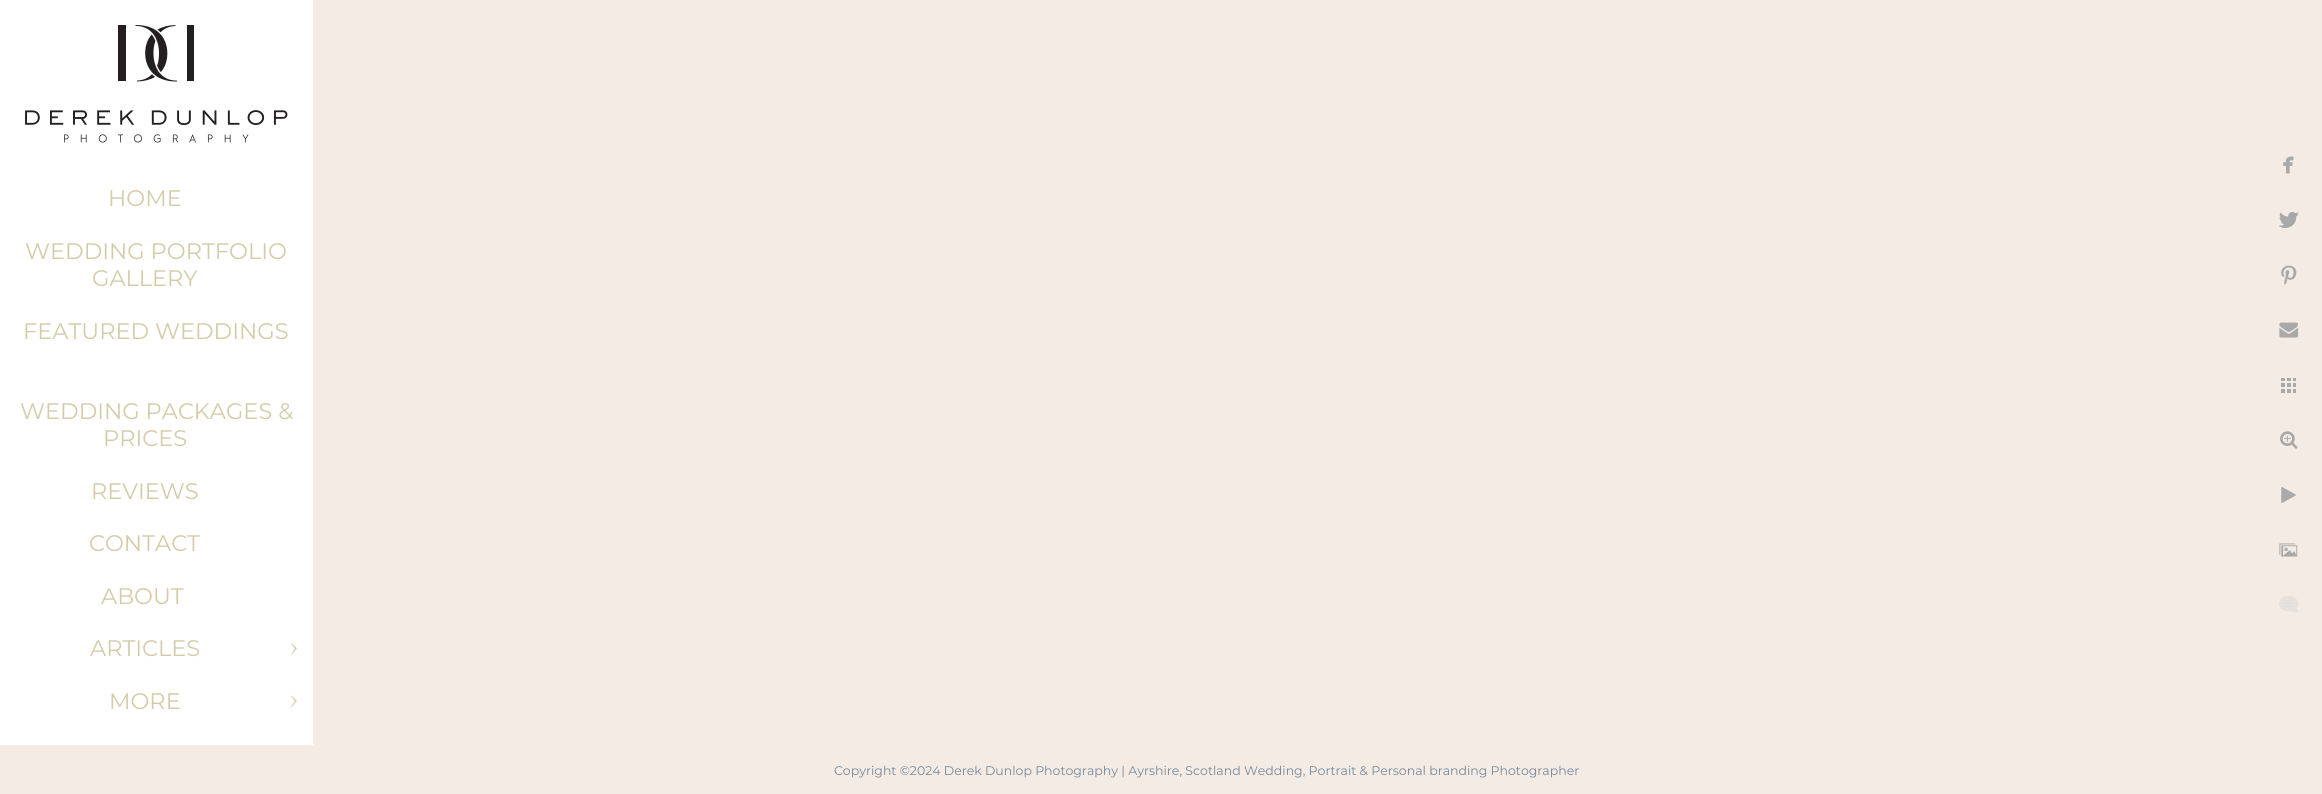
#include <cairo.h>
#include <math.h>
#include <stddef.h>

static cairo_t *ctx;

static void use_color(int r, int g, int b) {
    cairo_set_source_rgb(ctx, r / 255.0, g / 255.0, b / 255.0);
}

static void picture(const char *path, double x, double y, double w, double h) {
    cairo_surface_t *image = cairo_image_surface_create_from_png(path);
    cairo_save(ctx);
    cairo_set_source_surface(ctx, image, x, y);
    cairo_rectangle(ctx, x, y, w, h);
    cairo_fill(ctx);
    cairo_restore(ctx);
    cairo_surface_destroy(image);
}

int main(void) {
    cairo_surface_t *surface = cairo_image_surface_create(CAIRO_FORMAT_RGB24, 2322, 794);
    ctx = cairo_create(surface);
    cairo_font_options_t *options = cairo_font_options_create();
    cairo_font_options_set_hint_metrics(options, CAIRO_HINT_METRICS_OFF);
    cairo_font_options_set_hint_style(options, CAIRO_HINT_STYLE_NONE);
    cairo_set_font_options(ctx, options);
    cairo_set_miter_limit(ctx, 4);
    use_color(243, 235, 228);
    cairo_paint(ctx);
    use_color(255, 255, 255);
    cairo_rectangle(ctx, 0, 0, 313, 745);
    cairo_fill(ctx);
    picture("img1.png", 25, 25, 263, 118);
    cairo_select_font_face(ctx, "Montserrat Thin", CAIRO_FONT_SLANT_NORMAL, CAIRO_FONT_WEIGHT_NORMAL);
    cairo_set_font_size(ctx, 22.5);
    use_color(212, 203, 168);
    cairo_move_to(ctx, 108, 206);
    cairo_show_text(ctx, "HOME");
    cairo_move_to(ctx, 25, 259);
    cairo_show_text(ctx, "WEDDING PORTFOLIO");
    cairo_move_to(ctx, 92, 286);
    cairo_show_text(ctx, "GALLERY");
    cairo_move_to(ctx, 23, 339);
    cairo_show_text(ctx, "FEATURED WEDDINGS");
    cairo_move_to(ctx, 20, 419);
    cairo_show_text(ctx, "WEDDING PACKAGES &");
    cairo_move_to(ctx, 103, 446);
    cairo_show_text(ctx, "PRICES");
    cairo_move_to(ctx, 91, 499);
    cairo_show_text(ctx, "REVIEWS");
    cairo_move_to(ctx, 89, 551);
    cairo_show_text(ctx, "CONTACT");
    cairo_move_to(ctx, 101, 604);
    cairo_show_text(ctx, "ABOUT");
    cairo_move_to(ctx, 90, 656);
    cairo_show_text(ctx, "ARTICLES");
    picture("img2.png", 291, 643, 6, 12);
    cairo_move_to(ctx, 109, 709);
    cairo_show_text(ctx, "MORE");
    picture("img3.png", 291, 695, 6, 13);
    picture("img4.png", 2283, 156, 11, 18);
    picture("img5.png", 2279, 212, 20, 16);
    picture("img6.png", 2281, 265, 16, 20);
    picture("img7.png", 2279, 322, 20, 16);
    picture("img8.png", 2281, 378, 15, 15);
    picture("img9.png", 2280, 431, 18, 18);
    picture("img10.png", 2281, 487, 15, 16);
    picture("img11.png", 2279, 543, 19, 14);
    picture("img12.png", 2279, 596, 20, 17);
    cairo_set_font_size(ctx, 12.5);
    use_color(119, 136, 153);
    cairo_move_to(ctx, 834, 775);
    cairo_show_text(ctx, "Copyright ©2024 Derek Dunlop Photography | Ayrshire, Scotland Wedding, Portrait & Personal branding Photographer");
    cairo_surface_write_to_png(surface, "result.png");
    cairo_font_options_destroy(options);
    cairo_destroy(ctx);
    cairo_surface_destroy(surface);
    return 0;
}
